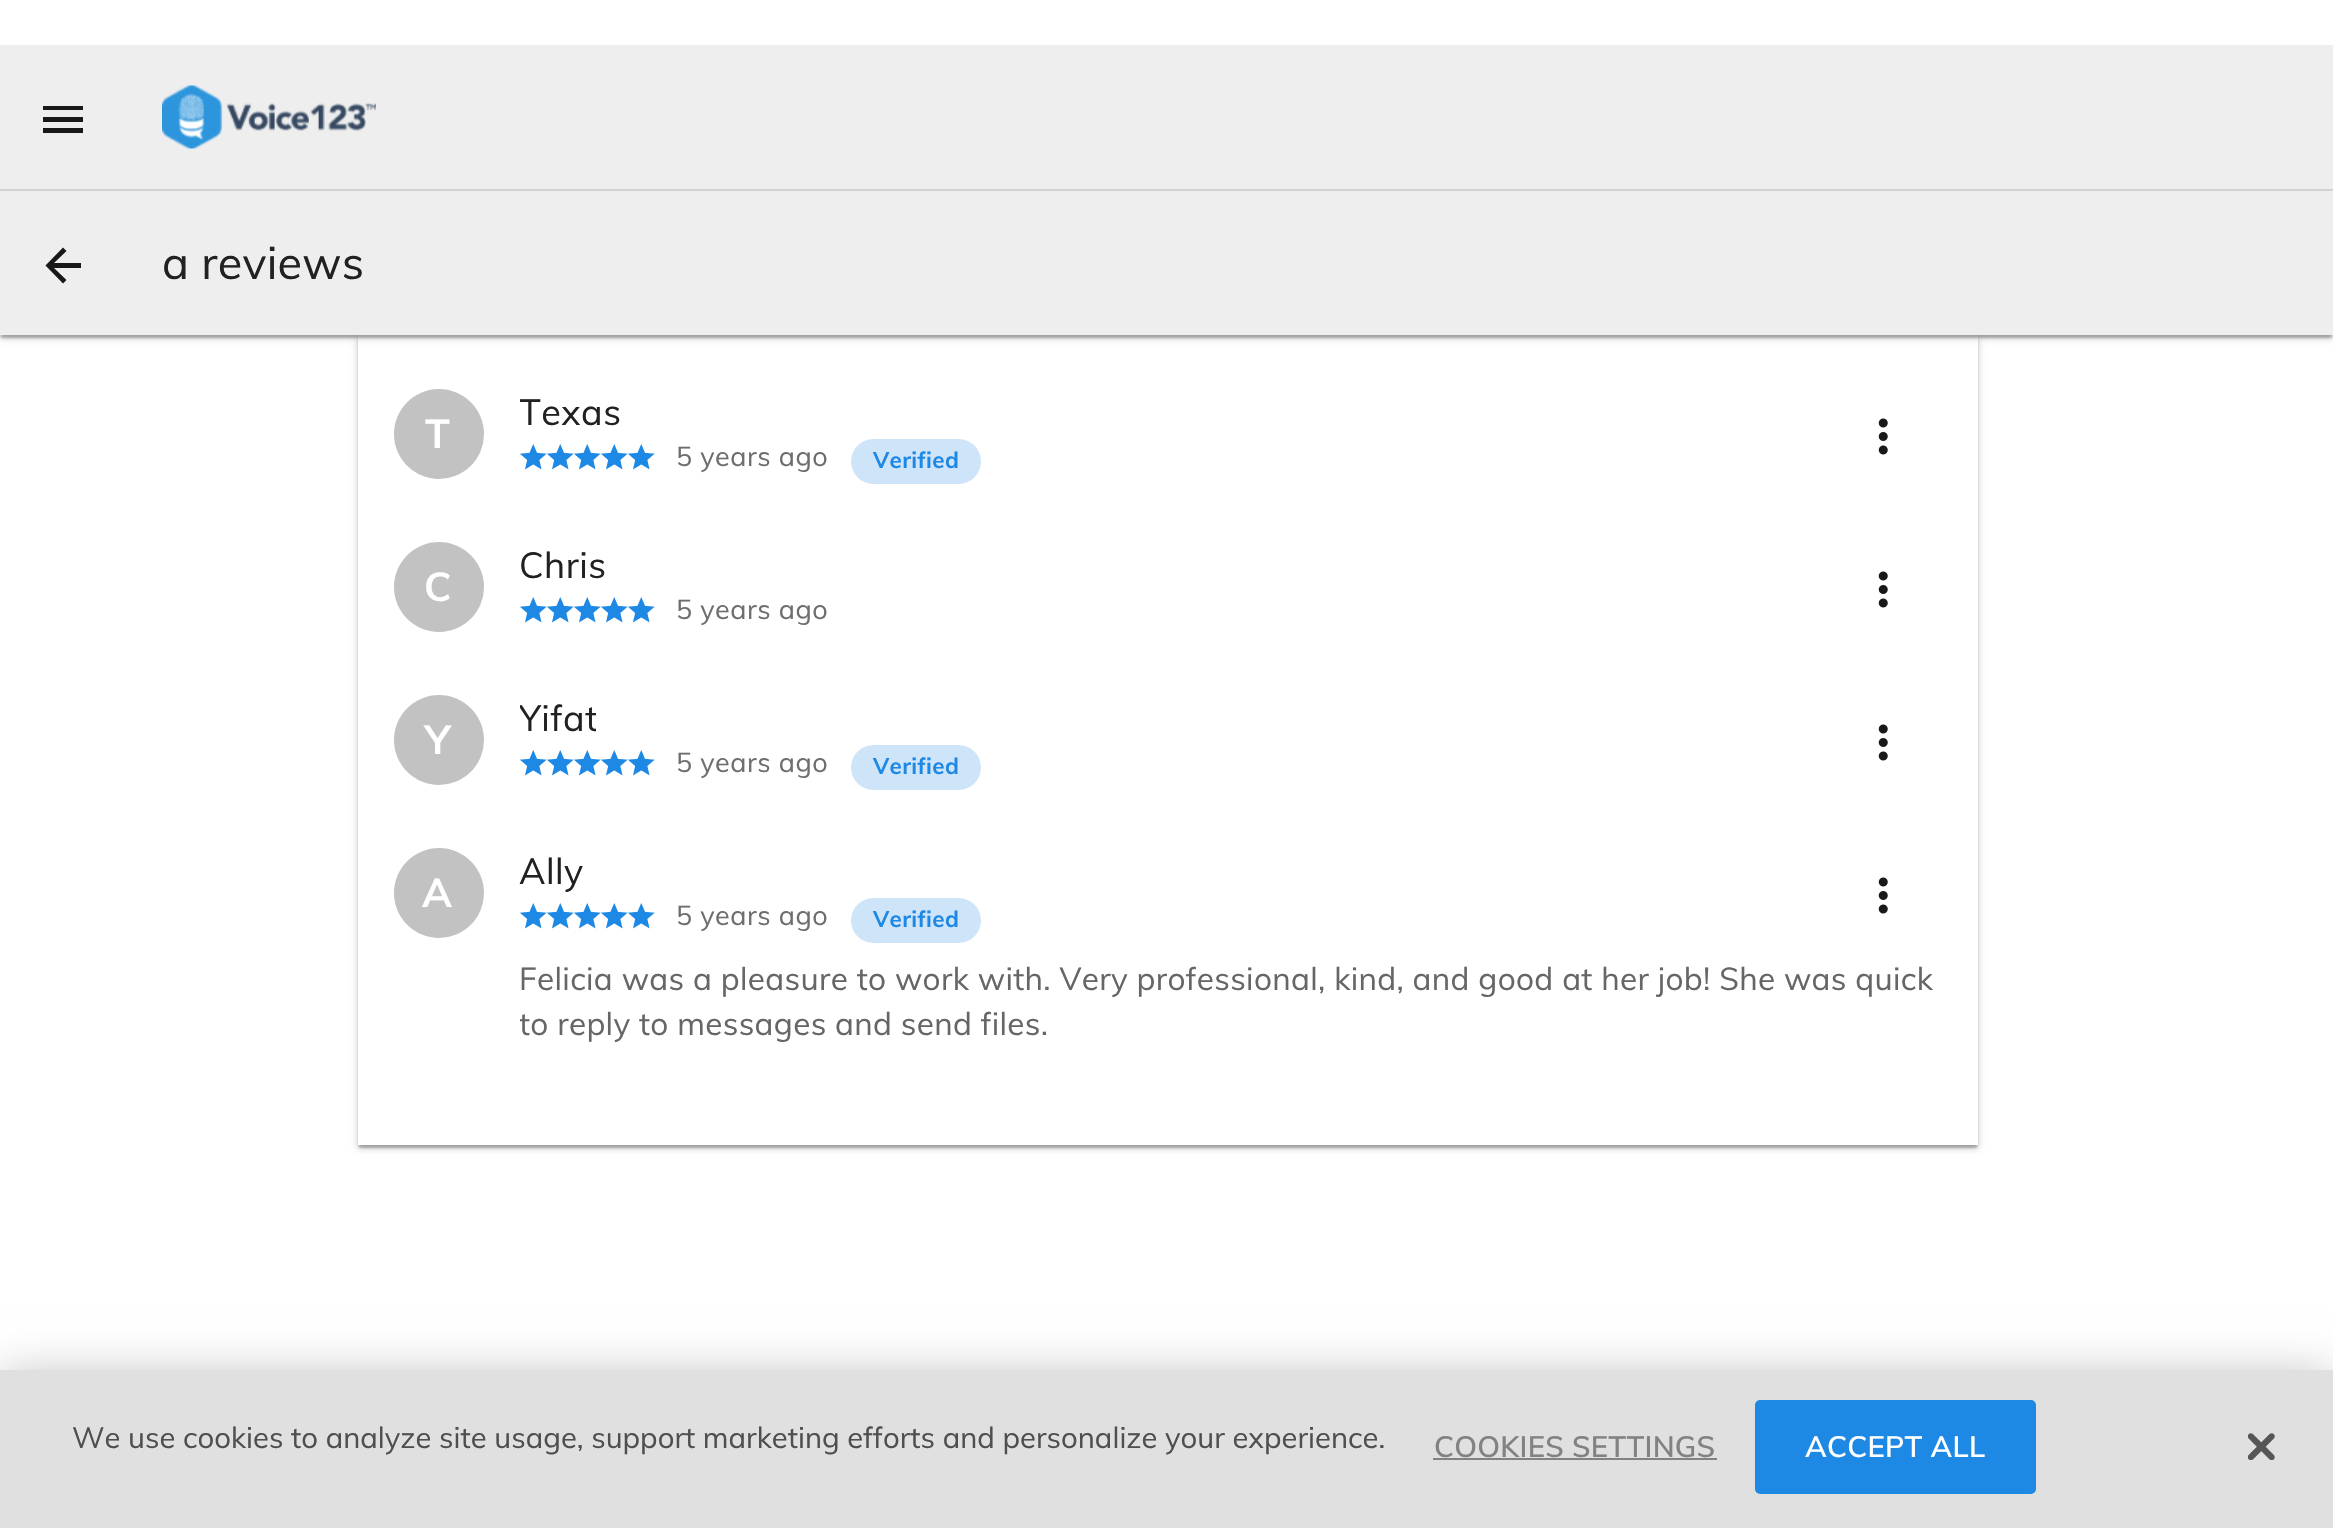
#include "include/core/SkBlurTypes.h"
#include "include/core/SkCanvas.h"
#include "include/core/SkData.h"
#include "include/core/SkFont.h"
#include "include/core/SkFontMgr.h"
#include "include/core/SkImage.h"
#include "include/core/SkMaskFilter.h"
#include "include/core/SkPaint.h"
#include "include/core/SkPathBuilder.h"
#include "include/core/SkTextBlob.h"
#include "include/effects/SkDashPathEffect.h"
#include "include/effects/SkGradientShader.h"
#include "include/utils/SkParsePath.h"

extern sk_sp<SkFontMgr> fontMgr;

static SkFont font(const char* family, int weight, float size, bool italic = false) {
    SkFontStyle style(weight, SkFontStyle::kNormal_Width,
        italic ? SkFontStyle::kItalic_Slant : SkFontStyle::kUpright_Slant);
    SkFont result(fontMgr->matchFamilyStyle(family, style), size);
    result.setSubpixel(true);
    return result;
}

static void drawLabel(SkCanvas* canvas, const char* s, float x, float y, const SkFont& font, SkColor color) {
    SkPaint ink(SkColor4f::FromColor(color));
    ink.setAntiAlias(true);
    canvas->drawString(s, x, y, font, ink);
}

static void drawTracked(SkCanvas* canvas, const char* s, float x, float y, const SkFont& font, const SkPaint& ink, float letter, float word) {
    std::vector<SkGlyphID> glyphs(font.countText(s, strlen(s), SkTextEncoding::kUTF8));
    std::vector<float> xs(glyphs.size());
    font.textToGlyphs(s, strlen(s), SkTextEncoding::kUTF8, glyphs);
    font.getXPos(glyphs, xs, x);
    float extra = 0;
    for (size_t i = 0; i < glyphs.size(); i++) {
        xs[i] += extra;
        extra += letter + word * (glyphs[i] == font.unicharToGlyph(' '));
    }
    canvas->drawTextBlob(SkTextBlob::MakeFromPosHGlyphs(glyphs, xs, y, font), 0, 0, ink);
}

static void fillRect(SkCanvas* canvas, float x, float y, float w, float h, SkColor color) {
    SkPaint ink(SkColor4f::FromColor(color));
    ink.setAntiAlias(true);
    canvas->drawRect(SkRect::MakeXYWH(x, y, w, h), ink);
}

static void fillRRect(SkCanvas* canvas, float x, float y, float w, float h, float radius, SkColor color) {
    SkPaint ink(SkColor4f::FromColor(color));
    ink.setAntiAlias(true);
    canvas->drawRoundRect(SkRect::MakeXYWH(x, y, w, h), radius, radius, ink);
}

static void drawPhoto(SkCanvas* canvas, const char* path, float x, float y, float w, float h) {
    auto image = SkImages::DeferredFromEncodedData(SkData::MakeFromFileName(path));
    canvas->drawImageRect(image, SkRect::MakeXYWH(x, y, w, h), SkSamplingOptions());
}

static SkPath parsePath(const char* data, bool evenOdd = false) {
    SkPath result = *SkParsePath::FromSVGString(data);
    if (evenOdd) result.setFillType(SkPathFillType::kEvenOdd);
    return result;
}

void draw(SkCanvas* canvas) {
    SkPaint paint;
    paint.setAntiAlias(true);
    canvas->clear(0xFFFFFFFF);
    paint.setColor(0x1F000000);
    paint.setMaskFilter(SkMaskFilter::MakeBlur(kNormal_SkBlurStyle, 1));
    canvas->drawRect(SkRect::MakeXYWH(360, 342, 1616, 806), paint);
    paint.setMaskFilter(nullptr);
    paint.setColor(0x24000000);
    paint.setMaskFilter(SkMaskFilter::MakeBlur(kNormal_SkBlurStyle, 1));
    canvas->drawRect(SkRect::MakeXYWH(358, 338, 1620, 810), paint);
    paint.setMaskFilter(nullptr);
    paint.setColor(0x33000000);
    paint.setMaskFilter(SkMaskFilter::MakeBlur(kNormal_SkBlurStyle, 3.5f));
    canvas->drawRect(SkRect::MakeXYWH(358, 338, 1620, 810), paint);
    paint.setMaskFilter(nullptr);
    fillRect(canvas, 358, 335, 1620, 810, 0xFFFFFFFF);
    paint.setColor(0x1F000000);
    paint.setMaskFilter(SkMaskFilter::MakeBlur(kNormal_SkBlurStyle, 1));
    canvas->drawRect(SkRect::MakeXYWH(2, 52, 2329, 286), paint);
    paint.setMaskFilter(nullptr);
    paint.setColor(0x24000000);
    paint.setMaskFilter(SkMaskFilter::MakeBlur(kNormal_SkBlurStyle, 1));
    canvas->drawRect(SkRect::MakeXYWH(0, 47, 2333, 291), paint);
    paint.setMaskFilter(nullptr);
    canvas->save();
    canvas->clipRect(SkRect::MakeXYWH(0, 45, 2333, 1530));
    paint.setColor(0x33000000);
    paint.setMaskFilter(SkMaskFilter::MakeBlur(kNormal_SkBlurStyle, 3.5f));
    canvas->drawRect(SkRect::MakeXYWH(0, 47, 2333, 291), paint);
    paint.setMaskFilter(nullptr);
    canvas->restore();
    fillRect(canvas, 0, 45, 2333, 290, 0xFFEEEEEE);
    paint.setColor(0xFF181818);
    canvas->drawPath(parsePath("M43 106H83V110H43V106M43 117H83V122H43V117M43 128H83V133H43Z"), paint);
    drawPhoto(canvas, "assets/img1.png", 162, 85, 214, 64);
    fillRect(canvas, 0, 189, 2333, 2, 0xFFD1D1D1);
    canvas->drawPath(parsePath("M81 263V268H54L66.5 280L63 283.5L45.5 265.5L63 247.5L66.5 251L54 263Z"), paint);
    SkFont font1 = font("Muli", 400, 45);
    paint.setColor(0xFF212121);
    drawTracked(canvas, "a reviews", 162, 279, font1, paint, 0.25f, 0);
    paint.setColor(0xFFC2C2C2);
    canvas->drawCircle(439, 434, 45, paint);
    SkFont font2 = font("Muli", 700, 40);
    paint.setColor(0xFFFFFFFF);
    drawTracked(canvas, "T", 425, 448, font2, paint, 0.32f, 0);
    canvas->save();
    canvas->clipRect(SkRect::MakeXYWH(520, 389, 101, 45));
    SkFont font3 = font("Muli", 400, 36);
    paint.setColor(0xFF212121);
    drawTracked(canvas, "Texas", 519, 425, font3, paint, 0.5f, 0);
    canvas->restore();
    drawPhoto(canvas, "assets/img2.png", 520, 444, 27, 26);
    drawPhoto(canvas, "assets/img2.png", 547, 444, 27, 26);
    drawPhoto(canvas, "assets/img2.png", 574, 444, 27, 26);
    drawPhoto(canvas, "assets/img2.png", 601, 444, 27, 26);
    drawPhoto(canvas, "assets/img2.png", 628, 444, 27, 26);
    SkFont font4 = font("Muli", 400, 27);
    paint.setColor(0xFF6E6E6E);
    drawTracked(canvas, "5 years ago", 676, 466, font4, paint, 0.5f, 0);
    fillRRect(canvas, 851, 439, 130, 45, 22.5f, 0xFFCEE4F9);
    SkFont font5 = font("Muli", 700, 22.5f);
    paint.setColor(0xFF1E88E5);
    drawTracked(canvas, "Verified", 873, 468, font5, paint, 0.32f, 0);
    drawPhoto(canvas, "assets/img3.png", 1878, 418, 10, 37);
    paint.setColor(0xFFC2C2C2);
    canvas->drawCircle(439, 587, 45, paint);
    paint.setColor(0xFFFFFFFF);
    drawTracked(canvas, "C", 424, 601, font2, paint, 0.32f, 0);
    paint.setColor(0xFF212121);
    drawTracked(canvas, "Chris", 519, 578, font3, paint, 0.5f, 0);
    drawPhoto(canvas, "assets/img2.png", 520, 597, 27, 26);
    drawPhoto(canvas, "assets/img2.png", 547, 597, 27, 26);
    drawPhoto(canvas, "assets/img2.png", 574, 597, 27, 26);
    drawPhoto(canvas, "assets/img2.png", 601, 597, 27, 26);
    drawPhoto(canvas, "assets/img2.png", 628, 597, 27, 26);
    paint.setColor(0xFF6E6E6E);
    drawTracked(canvas, "5 years ago", 676, 619, font4, paint, 0.5f, 0);
    drawPhoto(canvas, "assets/img3.png", 1878, 571, 10, 37);
    paint.setColor(0xFFC2C2C2);
    canvas->drawCircle(439, 740, 45, paint);
    paint.setColor(0xFFFFFFFF);
    drawTracked(canvas, "Y", 425, 754, font2, paint, 0.32f, 0);
    canvas->save();
    canvas->clipRect(SkRect::MakeXYWH(520, 695, 76, 45));
    paint.setColor(0xFF212121);
    drawTracked(canvas, "Yifat", 519, 731, font3, paint, 0.5f, 0);
    canvas->restore();
    drawPhoto(canvas, "assets/img2.png", 520, 750, 27, 26);
    drawPhoto(canvas, "assets/img2.png", 547, 750, 27, 26);
    drawPhoto(canvas, "assets/img2.png", 574, 750, 27, 26);
    drawPhoto(canvas, "assets/img2.png", 601, 750, 27, 26);
    drawPhoto(canvas, "assets/img2.png", 628, 750, 27, 26);
    paint.setColor(0xFF6E6E6E);
    drawTracked(canvas, "5 years ago", 676, 772, font4, paint, 0.5f, 0);
    fillRRect(canvas, 851, 745, 130, 45, 22.5f, 0xFFCEE4F9);
    paint.setColor(0xFF1E88E5);
    drawTracked(canvas, "Verified", 873, 774, font5, paint, 0.32f, 0);
    drawPhoto(canvas, "assets/img3.png", 1878, 724, 10, 37);
    paint.setColor(0xFFC2C2C2);
    canvas->drawCircle(439, 893, 45, paint);
    paint.setColor(0xFFFFFFFF);
    drawTracked(canvas, "A", 422, 907, font2, paint, 0.32f, 0);
    paint.setColor(0xFF212121);
    drawTracked(canvas, "Ally", 519, 884, font3, paint, 0.5f, 0);
    drawPhoto(canvas, "assets/img2.png", 520, 903, 27, 26);
    drawPhoto(canvas, "assets/img2.png", 547, 903, 27, 26);
    drawPhoto(canvas, "assets/img2.png", 574, 903, 27, 26);
    drawPhoto(canvas, "assets/img2.png", 601, 903, 27, 26);
    drawPhoto(canvas, "assets/img2.png", 628, 903, 27, 26);
    paint.setColor(0xFF6E6E6E);
    drawTracked(canvas, "5 years ago", 676, 925, font4, paint, 0.5f, 0);
    fillRRect(canvas, 851, 898, 130, 45, 22.5f, 0xFFCEE4F9);
    paint.setColor(0xFF1E88E5);
    drawTracked(canvas, "Verified", 873, 927, font5, paint, 0.32f, 0);
    drawPhoto(canvas, "assets/img3.png", 1878, 877, 10, 37);
    SkFont font6 = font("Muli", 400, 31.5f);
    paint.setColor(0xFF666666);
    drawTracked(canvas, "Felicia was a pleasure to work with. Very professional, kind, and good at her job! She was quick", 519, 990, font6, paint, 0.32f, 0);
    canvas->save();
    canvas->clipRect(SkRect::MakeXYWH(520, 956, 1422, 90));
    drawTracked(canvas, "to reply to messages and send files.", 519, 1035, font6, paint, 0.32f, 0);
    canvas->restore();
    paint.setColor(0x33000000);
    paint.setMaskFilter(SkMaskFilter::MakeBlur(kNormal_SkBlurStyle, 20));
    canvas->drawRect(SkRect::MakeXYWH(0, 1370, 2333, 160), paint);
    paint.setMaskFilter(nullptr);
    fillRect(canvas, 0, 1370, 2333, 158, 0xFFE0E0E0);
    SkFont font7 = font("Muli", 400, 29.25f);
    drawLabel(canvas, "We use cookies to analyze site usage, support marketing efforts and personalize your experience.", 72, 1448, font7, 0xFF4F4F4F);
    SkFont font8 = font("Muli", 600, 29.25f);
    paint.setColor(0xFF828282);
    drawTracked(canvas, "COOKIES SETTINGS", 1434, 1457, font8, paint, 0.25f, 0);
    fillRect(canvas, 1433, 1458, 284, 2, 0xFF828282);
    paint.setColor(0xFF1E88E5);
    canvas->drawRoundRect(SkRect::MakeXYWH(1756, 1401, 279, 92), 4, 4, paint);
    paint.setStroke(true);
    paint.setStrokeWidth(2);
    canvas->drawRoundRect(SkRect::MakeXYWH(1756, 1401, 279, 92), 4, 4, paint);
    paint.setStroke(false);
    paint.setColor(0xFFFFFFFF);
    drawTracked(canvas, "ACCEPT ALL", 1805, 1457, font8, paint, 0.25f, 0);
    drawPhoto(canvas, "assets/img4.png", 2248, 1433, 27, 27);
}
